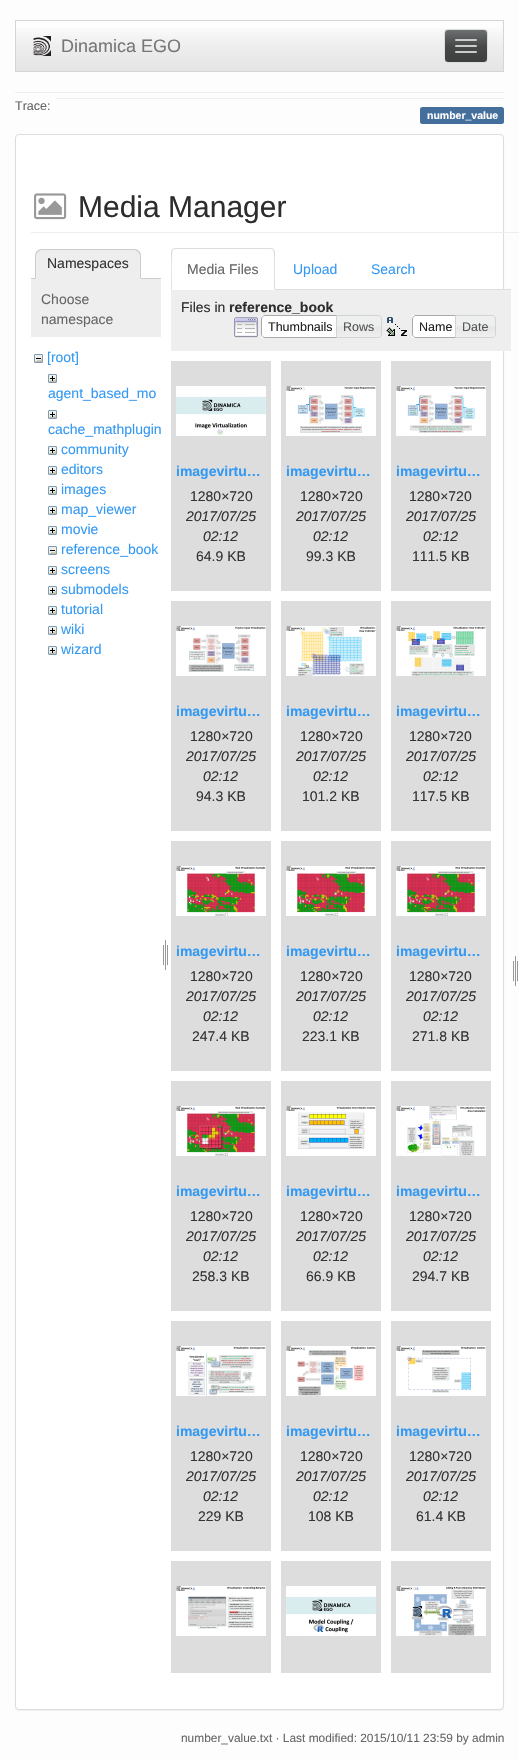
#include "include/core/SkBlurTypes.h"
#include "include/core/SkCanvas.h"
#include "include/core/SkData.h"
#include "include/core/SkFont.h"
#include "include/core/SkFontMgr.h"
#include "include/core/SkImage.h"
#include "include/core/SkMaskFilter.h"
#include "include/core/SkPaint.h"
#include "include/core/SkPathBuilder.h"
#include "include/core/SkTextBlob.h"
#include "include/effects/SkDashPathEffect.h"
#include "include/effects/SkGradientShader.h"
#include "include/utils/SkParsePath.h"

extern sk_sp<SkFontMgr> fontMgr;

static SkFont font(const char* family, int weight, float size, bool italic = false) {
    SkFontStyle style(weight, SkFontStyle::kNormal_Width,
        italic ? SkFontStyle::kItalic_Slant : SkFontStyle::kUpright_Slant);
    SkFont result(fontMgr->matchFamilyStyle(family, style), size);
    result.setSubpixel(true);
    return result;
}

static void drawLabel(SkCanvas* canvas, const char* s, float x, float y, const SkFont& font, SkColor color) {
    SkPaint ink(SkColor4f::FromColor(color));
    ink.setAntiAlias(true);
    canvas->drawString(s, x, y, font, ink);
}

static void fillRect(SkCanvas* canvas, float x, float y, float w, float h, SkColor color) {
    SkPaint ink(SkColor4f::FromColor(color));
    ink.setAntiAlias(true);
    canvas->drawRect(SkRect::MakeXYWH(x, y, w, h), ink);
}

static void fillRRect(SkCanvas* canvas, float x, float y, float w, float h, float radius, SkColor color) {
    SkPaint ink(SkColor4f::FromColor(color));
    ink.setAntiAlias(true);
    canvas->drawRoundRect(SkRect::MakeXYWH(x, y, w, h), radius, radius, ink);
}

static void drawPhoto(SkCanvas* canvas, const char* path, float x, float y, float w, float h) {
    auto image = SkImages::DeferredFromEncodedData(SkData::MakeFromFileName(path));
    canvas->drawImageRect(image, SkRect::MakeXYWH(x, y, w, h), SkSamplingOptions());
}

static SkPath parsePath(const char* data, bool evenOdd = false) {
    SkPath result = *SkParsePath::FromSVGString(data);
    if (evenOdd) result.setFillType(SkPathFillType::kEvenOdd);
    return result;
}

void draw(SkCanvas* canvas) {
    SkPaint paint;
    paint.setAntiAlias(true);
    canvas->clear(0xFFFDFDFD);
    {
        const SkColor colors[] = {0xFFFFFFFF, 0xFFEEEEEE, 0xFFE4E4E4};
        const float stops[] = {0, 0.5f, 1};
        const SkPoint ends[] = {{260, 21}, {260, 71}};
        paint.setShader(SkGradientShader::MakeLinear(ends, colors, stops, 3, SkTileMode::kClamp));
        paint.setAlpha(255);
    }
    canvas->drawRect(SkRect::MakeXYWH(16, 28, 487, 43), paint);
    paint.setStroke(true);
    paint.setStrokeWidth(1);
    paint.setShader(nullptr);
    paint.setColor(0xFFD5D5D5);
    canvas->drawRect(SkRect::MakeXYWH(15.5f, 20.5f, 488, 51), paint);
    drawPhoto(canvas, "assets/img1.png", 33, 36, 18, 20);
    SkFont font1 = font("Liberation Sans", 400, 18);
    drawLabel(canvas, "Dinamica EGO", 61, 52, font1, 0xFF777777);
    canvas->save();
    canvas->clipPath(parsePath("M448 29H484C486 29 488 31 488 33V59C488 61 486 63 484 63H448C446 63 444 61 444 59V33C444 31 446 29 448 29Z"), true);
    paint.setStroke(false);
    {
        const SkColor colors[] = {0xFF6D7070, 0xFF474949, 0xFF3D3F3F};
        const float stops[] = {0, 0.5f, 1};
        const SkPoint ends[] = {{466, 30}, {466, 62}};
        paint.setShader(SkGradientShader::MakeLinear(ends, colors, stops, 3, SkTileMode::kClamp));
        paint.setAlpha(255);
    }
    canvas->drawRect(SkRect::MakeXYWH(445, 30, 42, 32), paint);
    canvas->restore();
    paint.setStroke(true);
    paint.setShader(nullptr);
    paint.setColor(0xFFDDDDDD);
    canvas->drawRoundRect(SkRect::MakeXYWH(444.5f, 29.5f, 43, 33), 3.5f, 3.5f, paint);
    fillRRect(canvas, 455, 39, 22, 2, 1, 0xFFCCCCCC);
    fillRRect(canvas, 455, 45, 22, 2, 1, 0xFFCCCCCC);
    fillRRect(canvas, 455, 51, 22, 2, 1, 0xFFCCCCCC);
    fillRect(canvas, 15, 92, 489, 1, 0xFFEEEEEE);
    fillRect(canvas, 56, 98, 448, 1, 0xFFEEEEEE);
    SkFont font2 = font("Liberation Sans", 400, 12.5f);
    drawLabel(canvas, "Trace:", 15, 110, font2, 0xFF666666);
    fillRRect(canvas, 420, 107, 84, 17, 2.5f, 0xFF446E9B);
    SkFont font3 = font("Liberation Sans", 700, 10.5f);
    drawLabel(canvas, "number_value", 427, 119, font3, 0xFFFFFFFF);
    paint.setStroke(false);
    paint.setColor(0x0D000000);
    paint.setMaskFilter(SkMaskFilter::MakeBlur(kNormal_SkBlurStyle, 0.5f));
    canvas->drawRoundRect(SkRect::MakeXYWH(15, 135, 489, 1576), 4, 4, paint);
    paint.setMaskFilter(nullptr);
    paint.setColor(0xFFFFFFFF);
    canvas->drawRoundRect(SkRect::MakeXYWH(15.5f, 134.5f, 488, 1575), 3.5f, 3.5f, paint);
    paint.setStroke(true);
    paint.setColor(0xFFDDDDDD);
    canvas->drawRoundRect(SkRect::MakeXYWH(15.5f, 134.5f, 488, 1575), 3.5f, 3.5f, paint);
    fillRect(canvas, 31, 232, 488, 1, 0xFFEEEEEE);
    drawPhoto(canvas, "assets/img2.png", 34, 193, 33, 27);
    SkFont font4 = font("Liberation Sans", 400, 30);
    drawLabel(canvas, "Media Manager", 78, 217, font4, 0xFF2D2D2D);
    fillRect(canvas, 31, 278, 130, 1, 0xFFCCCCCC);
    paint.setStroke(false);
    paint.setColor(0xFFEEEEEE);
    canvas->drawPath(parsePath("M42 249H134C138 249 141 252 141 256V279H35V256C35 252 38 249 42 249Z"), paint);
    paint.setColor(0xFFCCCCCC);
    canvas->drawPath(parsePath("M42 249C40 249 38 250 37 251L38 252L41 250H135L138 252L139 251C138 250 136 249 134 249Z"), paint);
    canvas->drawPath(parsePath("M141 279V256C141 254 140 252 139 251L138 252C139 253 140 254.5 140 256V278Z"), paint);
    paint.setColor(0xFFEEEEEE);
    canvas->drawPath(parsePath("M141 279L140 278H36L35 279Z"), paint);
    paint.setColor(0xFFCCCCCC);
    canvas->drawPath(parsePath("M35 279L36 278V256C36 254.5 37 253 38 252L37 251C36 252 35 254 35 256Z"), paint);
    SkFont font5 = font("Liberation Sans", 400, 14);
    drawLabel(canvas, "Namespaces", 47, 268, font5, 0xFF333333);
    fillRect(canvas, 31, 279, 130, 58, 0xFFEEEEEE);
    drawLabel(canvas, "Choose", 41, 304, font5, 0xFF666666);
    drawLabel(canvas, "namespace", 41, 324, font5, 0xFF666666);
    drawPhoto(canvas, "assets/img3.png", 34, 354, 9, 9);
    drawLabel(canvas, "[root]", 47, 362, font5, 0xFF3399F3);
    drawPhoto(canvas, "assets/img4.png", 48, 374, 9, 9);
    drawLabel(canvas, "agent_based_mo", 48, 398, font5, 0xFF3399F3);
    drawPhoto(canvas, "assets/img4.png", 48, 410, 9, 9);
    drawLabel(canvas, "cache_mathplugin", 48, 434, font5, 0xFF3399F3);
    drawPhoto(canvas, "assets/img4.png", 48, 446, 9, 9);
    drawLabel(canvas, "community", 61, 454, font5, 0xFF3399F3);
    drawPhoto(canvas, "assets/img4.png", 48, 466, 9, 9);
    drawLabel(canvas, "editors", 61, 474, font5, 0xFF3399F3);
    drawPhoto(canvas, "assets/img4.png", 48, 486, 9, 9);
    drawLabel(canvas, "images", 61, 494, font5, 0xFF3399F3);
    drawPhoto(canvas, "assets/img4.png", 48, 506, 9, 9);
    drawLabel(canvas, "map_viewer", 61, 514, font5, 0xFF3399F3);
    drawPhoto(canvas, "assets/img4.png", 48, 526, 9, 9);
    drawLabel(canvas, "movie", 61, 534, font5, 0xFF3399F3);
    drawPhoto(canvas, "assets/img3.png", 48, 546, 9, 9);
    drawLabel(canvas, "reference_book", 61, 554, font5, 0xFF3399F3);
    drawPhoto(canvas, "assets/img4.png", 48, 566, 9, 9);
    drawLabel(canvas, "screens", 61, 574, font5, 0xFF3399F3);
    drawPhoto(canvas, "assets/img4.png", 48, 586, 9, 9);
    drawLabel(canvas, "submodels", 61, 594, font5, 0xFF3399F3);
    drawPhoto(canvas, "assets/img4.png", 48, 606, 9, 9);
    drawLabel(canvas, "tutorial", 61, 614, font5, 0xFF3399F3);
    drawPhoto(canvas, "assets/img4.png", 48, 626, 9, 9);
    drawLabel(canvas, "wiki", 61, 634, font5, 0xFF3399F3);
    drawPhoto(canvas, "assets/img4.png", 48, 646, 9, 9);
    drawLabel(canvas, "wizard", 61, 654, font5, 0xFF3399F3);
    drawPhoto(canvas, "assets/img5.png", 163, 939, 5, 31);
    fillRect(canvas, 275, 289, 236, 1, 0xFFDDDDDD);
    paint.setColor(0xFFDDDDDD);
    canvas->drawPath(parsePath("M175 248L172 249L173 250L175 249H271L273 250L274 249L271 248Z"), paint);
    canvas->drawPath(parsePath("M275 290V252C275 251 274 250 274 249L273 250C275 252 274 284 274 289Z"), paint);
    canvas->drawPath(parsePath("M171 290L172 289C172 284 171 252 173 250L172 249L171 252Z"), paint);
    drawLabel(canvas, "Media Files", 187, 274, font5, 0xFF666666);
    drawLabel(canvas, "Upload", 293, 274, font5, 0xFF3399F3);
    drawLabel(canvas, "Search", 371, 274, font5, 0xFF3399F3);
    fillRect(canvas, 171, 290, 340, 61, 0xFFEEEEEE);
    drawLabel(canvas, "Files in", 181, 312, font5, 0xFF2D2D2D);
    SkFont font6 = font("Liberation Sans", 700, 14);
    drawLabel(canvas, "reference_book", 229, 312, font6, 0xFF2D2D2D);
    drawPhoto(canvas, "assets/img6.png", 234, 317, 24, 21);
    fillRect(canvas, 261, 315, 75, 23, 0xFFFFFFFF);
    paint.setStroke(true);
    paint.setColor(0xFFAAAAAA);
    canvas->drawPath(parsePath("M265 315.5H340.5V337.5H265C263 337.5 261.5 336 261.5 334V319C261.5 317 263 315.5 265 315.5Z"), paint);
    drawLabel(canvas, "Thumbnails", 268, 331, font2, 0xFF212121);
    drawPhoto(canvas, "assets/img7.png", 337, 315, 45, 23);
    paint.setColor(0xFFD3D3D3);
    canvas->drawPath(parsePath("M336.5 315.5H378C380 315.5 381.5 317 381.5 319V334C381.5 336 380 337.5 378 337.5H336.5Z"), paint);
    drawLabel(canvas, "Rows", 343, 331, font2, 0xFF555555);
    drawPhoto(canvas, "assets/img8.png", 386, 317, 21, 19);
    fillRect(canvas, 412, 315, 43, 23, 0xFFFFFFFF);
    paint.setColor(0xFFAAAAAA);
    canvas->drawPath(parsePath("M416 315.5H459.5V337.5H416C414 337.5 412.5 336 412.5 334V319C412.5 317 414 315.5 416 315.5Z"), paint);
    drawLabel(canvas, "Name", 419, 331, font2, 0xFF212121);
    drawPhoto(canvas, "assets/img9.png", 456, 315, 40, 23);
    paint.setColor(0xFFD3D3D3);
    canvas->drawPath(parsePath("M455.5 315.5H492C494 315.5 495.5 317 495.5 319V334C495.5 336 494 337.5 492 337.5H455.5Z"), paint);
    drawLabel(canvas, "Date", 462, 331, font2, 0xFF555555);
    fillRect(canvas, 171, 361, 100, 230, 0xFFDDDDDD);
    drawPhoto(canvas, "assets/img10.png", 176, 386, 90, 50);
    drawLabel(canvas, "imagevirtu…", 176, 476, font6, 0xFF3399F3);
    drawLabel(canvas, "1280×720", 190, 501, font5, 0xFF333333);
    SkFont font7 = font("Liberation Sans", 400, 14, true);
    drawLabel(canvas, "2017/07/25", 186, 521, font7, 0xFF333333);
    drawLabel(canvas, "02:12", 203, 541, font7, 0xFF333333);
    drawLabel(canvas, "64.9 KB", 196, 561, font5, 0xFF333333);
    fillRect(canvas, 281, 361, 100, 230, 0xFFDDDDDD);
    drawPhoto(canvas, "assets/img11.png", 286, 386, 90, 50);
    drawLabel(canvas, "imagevirtu…", 286, 476, font6, 0xFF3399F3);
    drawLabel(canvas, "1280×720", 300, 501, font5, 0xFF333333);
    drawLabel(canvas, "2017/07/25", 296, 521, font7, 0xFF333333);
    drawLabel(canvas, "02:12", 313, 541, font7, 0xFF333333);
    drawLabel(canvas, "99.3 KB", 306, 561, font5, 0xFF333333);
    fillRect(canvas, 391, 361, 100, 230, 0xFFDDDDDD);
    drawPhoto(canvas, "assets/img12.png", 396, 386, 90, 50);
    drawLabel(canvas, "imagevirtu…", 396, 476, font6, 0xFF3399F3);
    drawLabel(canvas, "1280×720", 409, 501, font5, 0xFF333333);
    drawLabel(canvas, "2017/07/25", 406, 521, font7, 0xFF333333);
    drawLabel(canvas, "02:12", 423, 541, font7, 0xFF333333);
    drawLabel(canvas, "111.5 KB", 412, 561, font5, 0xFF333333);
    fillRect(canvas, 171, 601, 100, 230, 0xFFDDDDDD);
    drawPhoto(canvas, "assets/img13.png", 176, 626, 90, 50);
    drawLabel(canvas, "imagevirtu…", 176, 716, font6, 0xFF3399F3);
    drawLabel(canvas, "1280×720", 190, 741, font5, 0xFF333333);
    drawLabel(canvas, "2017/07/25", 186, 761, font7, 0xFF333333);
    drawLabel(canvas, "02:12", 203, 781, font7, 0xFF333333);
    drawLabel(canvas, "94.3 KB", 196, 801, font5, 0xFF333333);
    fillRect(canvas, 281, 601, 100, 230, 0xFFDDDDDD);
    drawPhoto(canvas, "assets/img14.png", 286, 626, 90, 50);
    drawLabel(canvas, "imagevirtu…", 286, 716, font6, 0xFF3399F3);
    drawLabel(canvas, "1280×720", 300, 741, font5, 0xFF333333);
    drawLabel(canvas, "2017/07/25", 296, 761, font7, 0xFF333333);
    drawLabel(canvas, "02:12", 313, 781, font7, 0xFF333333);
    drawLabel(canvas, "101.2 KB", 302, 801, font5, 0xFF333333);
    fillRect(canvas, 391, 601, 100, 230, 0xFFDDDDDD);
    drawPhoto(canvas, "assets/img15.png", 396, 626, 90, 50);
    drawLabel(canvas, "imagevirtu…", 396, 716, font6, 0xFF3399F3);
    drawLabel(canvas, "1280×720", 409, 741, font5, 0xFF333333);
    drawLabel(canvas, "2017/07/25", 406, 761, font7, 0xFF333333);
    drawLabel(canvas, "02:12", 423, 781, font7, 0xFF333333);
    drawLabel(canvas, "117.5 KB", 412, 801, font5, 0xFF333333);
    fillRect(canvas, 171, 841, 100, 230, 0xFFDDDDDD);
    drawPhoto(canvas, "assets/img16.png", 176, 866, 90, 50);
    drawLabel(canvas, "imagevirtu…", 176, 956, font6, 0xFF3399F3);
    drawLabel(canvas, "1280×720", 190, 981, font5, 0xFF333333);
    drawLabel(canvas, "2017/07/25", 186, 1001, font7, 0xFF333333);
    drawLabel(canvas, "02:12", 203, 1021, font7, 0xFF333333);
    drawLabel(canvas, "247.4 KB", 192, 1041, font5, 0xFF333333);
    fillRect(canvas, 281, 841, 100, 230, 0xFFDDDDDD);
    drawPhoto(canvas, "assets/img17.png", 286, 866, 90, 50);
    drawLabel(canvas, "imagevirtu…", 286, 956, font6, 0xFF3399F3);
    drawLabel(canvas, "1280×720", 300, 981, font5, 0xFF333333);
    drawLabel(canvas, "2017/07/25", 296, 1001, font7, 0xFF333333);
    drawLabel(canvas, "02:12", 313, 1021, font7, 0xFF333333);
    drawLabel(canvas, "223.1 KB", 302, 1041, font5, 0xFF333333);
    fillRect(canvas, 391, 841, 100, 230, 0xFFDDDDDD);
    drawPhoto(canvas, "assets/img18.png", 396, 866, 90, 50);
    drawLabel(canvas, "imagevirtu…", 396, 956, font6, 0xFF3399F3);
    drawLabel(canvas, "1280×720", 409, 981, font5, 0xFF333333);
    drawLabel(canvas, "2017/07/25", 406, 1001, font7, 0xFF333333);
    drawLabel(canvas, "02:12", 423, 1021, font7, 0xFF333333);
    drawLabel(canvas, "271.8 KB", 412, 1041, font5, 0xFF333333);
    fillRect(canvas, 171, 1081, 100, 230, 0xFFDDDDDD);
    drawPhoto(canvas, "assets/img19.png", 176, 1106, 90, 50);
    drawLabel(canvas, "imagevirtu…", 176, 1196, font6, 0xFF3399F3);
    drawLabel(canvas, "1280×720", 190, 1221, font5, 0xFF333333);
    drawLabel(canvas, "2017/07/25", 186, 1241, font7, 0xFF333333);
    drawLabel(canvas, "02:12", 203, 1261, font7, 0xFF333333);
    drawLabel(canvas, "258.3 KB", 192, 1281, font5, 0xFF333333);
    fillRect(canvas, 281, 1081, 100, 230, 0xFFDDDDDD);
    drawPhoto(canvas, "assets/img20.png", 286, 1106, 90, 50);
    drawLabel(canvas, "imagevirtu…", 286, 1196, font6, 0xFF3399F3);
    drawLabel(canvas, "1280×720", 300, 1221, font5, 0xFF333333);
    drawLabel(canvas, "2017/07/25", 296, 1241, font7, 0xFF333333);
    drawLabel(canvas, "02:12", 313, 1261, font7, 0xFF333333);
    drawLabel(canvas, "66.9 KB", 306, 1281, font5, 0xFF333333);
    fillRect(canvas, 391, 1081, 100, 230, 0xFFDDDDDD);
    drawPhoto(canvas, "assets/img21.png", 396, 1106, 90, 50);
    drawLabel(canvas, "imagevirtu…", 396, 1196, font6, 0xFF3399F3);
    drawLabel(canvas, "1280×720", 409, 1221, font5, 0xFF333333);
    drawLabel(canvas, "2017/07/25", 406, 1241, font7, 0xFF333333);
    drawLabel(canvas, "02:12", 423, 1261, font7, 0xFF333333);
    drawLabel(canvas, "294.7 KB", 412, 1281, font5, 0xFF333333);
    fillRect(canvas, 171, 1321, 100, 230, 0xFFDDDDDD);
    drawPhoto(canvas, "assets/img22.png", 176, 1346, 90, 50);
    drawLabel(canvas, "imagevirtu…", 176, 1436, font6, 0xFF3399F3);
    drawLabel(canvas, "1280×720", 190, 1461, font5, 0xFF333333);
    drawLabel(canvas, "2017/07/25", 186, 1481, font7, 0xFF333333);
    drawLabel(canvas, "02:12", 203, 1501, font7, 0xFF333333);
    drawLabel(canvas, "229 KB", 198, 1521, font5, 0xFF333333);
    fillRect(canvas, 281, 1321, 100, 230, 0xFFDDDDDD);
    drawPhoto(canvas, "assets/img23.png", 286, 1346, 90, 50);
    drawLabel(canvas, "imagevirtu…", 286, 1436, font6, 0xFF3399F3);
    drawLabel(canvas, "1280×720", 300, 1461, font5, 0xFF333333);
    drawLabel(canvas, "2017/07/25", 296, 1481, font7, 0xFF333333);
    drawLabel(canvas, "02:12", 313, 1501, font7, 0xFF333333);
    drawLabel(canvas, "108 KB", 308, 1521, font5, 0xFF333333);
    fillRect(canvas, 391, 1321, 100, 230, 0xFFDDDDDD);
    drawPhoto(canvas, "assets/img24.png", 396, 1346, 90, 50);
    drawLabel(canvas, "imagevirtu…", 396, 1436, font6, 0xFF3399F3);
    drawLabel(canvas, "1280×720", 409, 1461, font5, 0xFF333333);
    drawLabel(canvas, "2017/07/25", 406, 1481, font7, 0xFF333333);
    drawLabel(canvas, "02:12", 423, 1501, font7, 0xFF333333);
    drawLabel(canvas, "61.4 KB", 416, 1521, font5, 0xFF333333);
    fillRect(canvas, 171, 1561, 100, 112, 0xFFDDDDDD);
    drawPhoto(canvas, "assets/img25.png", 176, 1586, 90, 50);
    fillRect(canvas, 281, 1561, 100, 112, 0xFFDDDDDD);
    drawPhoto(canvas, "assets/img26.png", 286, 1586, 90, 50);
    fillRect(canvas, 391, 1561, 100, 112, 0xFFDDDDDD);
    drawPhoto(canvas, "assets/img27.png", 396, 1586, 90, 50);
    drawPhoto(canvas, "assets/img28.png", 513, 955, 5, 31);
    SkFont font8 = font("Liberation Sans", 400, 11.9f);
    drawLabel(canvas, "number_value.txt · Last modified: 2015/10/11 23:59 by admin", 181, 1742, font8, 0xFF666666);
}
